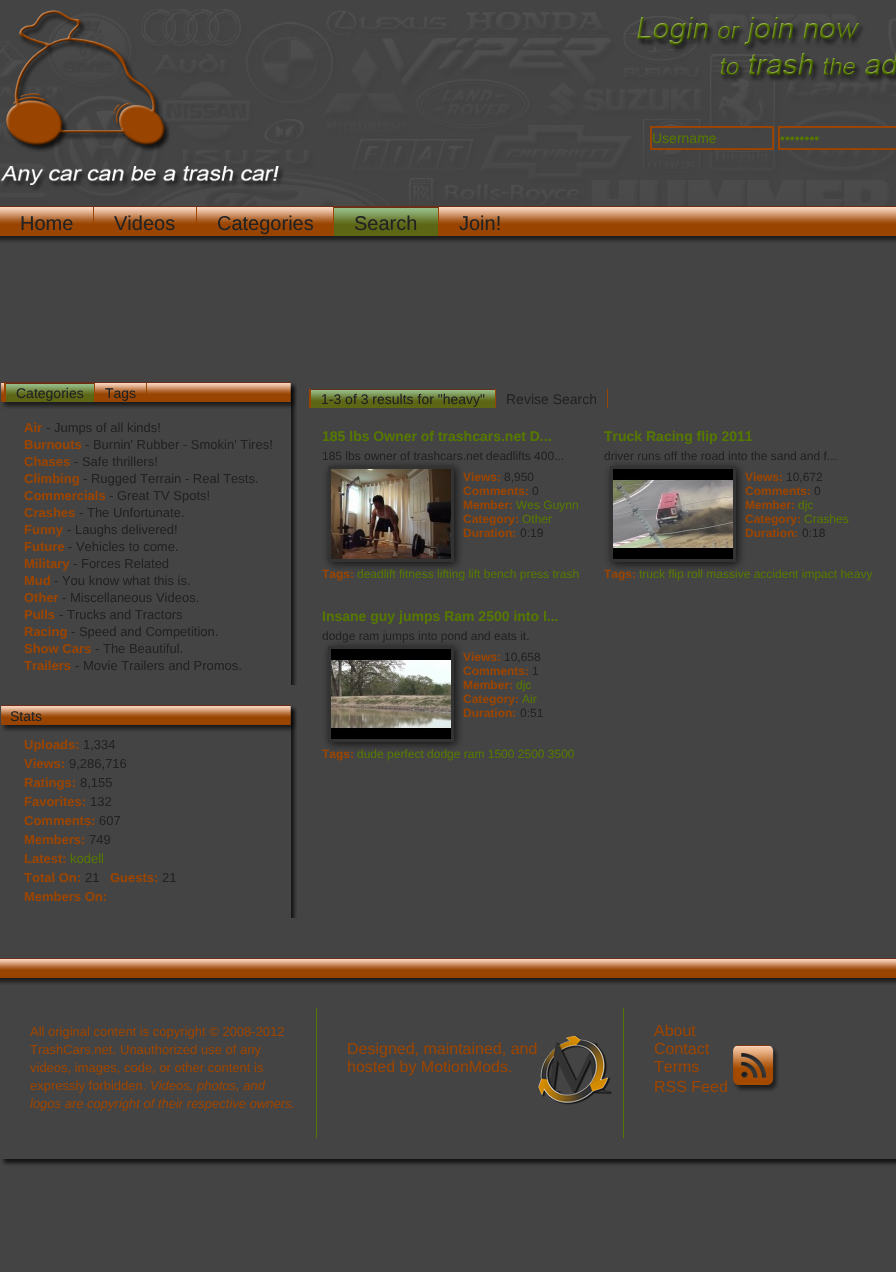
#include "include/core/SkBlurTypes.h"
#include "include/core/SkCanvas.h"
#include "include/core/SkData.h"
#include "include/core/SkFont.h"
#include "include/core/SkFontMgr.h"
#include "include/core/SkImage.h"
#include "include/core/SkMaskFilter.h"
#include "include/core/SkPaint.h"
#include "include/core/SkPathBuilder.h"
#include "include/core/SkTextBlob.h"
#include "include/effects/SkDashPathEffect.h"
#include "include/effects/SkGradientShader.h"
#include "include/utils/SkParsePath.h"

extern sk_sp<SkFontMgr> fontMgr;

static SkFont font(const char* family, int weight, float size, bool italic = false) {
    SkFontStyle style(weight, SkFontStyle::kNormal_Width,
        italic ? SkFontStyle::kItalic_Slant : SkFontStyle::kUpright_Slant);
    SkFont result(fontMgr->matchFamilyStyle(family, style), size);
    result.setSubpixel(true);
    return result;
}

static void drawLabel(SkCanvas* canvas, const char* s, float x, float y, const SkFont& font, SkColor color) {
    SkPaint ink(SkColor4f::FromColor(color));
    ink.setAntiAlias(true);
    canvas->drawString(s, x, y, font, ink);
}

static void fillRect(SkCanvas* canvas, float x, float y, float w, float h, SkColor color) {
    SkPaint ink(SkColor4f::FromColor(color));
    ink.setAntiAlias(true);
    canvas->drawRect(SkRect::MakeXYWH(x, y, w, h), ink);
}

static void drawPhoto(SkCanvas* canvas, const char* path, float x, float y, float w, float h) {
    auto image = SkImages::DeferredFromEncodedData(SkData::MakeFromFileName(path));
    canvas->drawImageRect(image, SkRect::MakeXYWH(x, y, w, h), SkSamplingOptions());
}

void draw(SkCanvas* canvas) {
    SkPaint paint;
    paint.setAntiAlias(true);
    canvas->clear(0xFF444444);
    drawPhoto(canvas, "assets/img1.png", 0, 9, 896, 197);
    drawPhoto(canvas, "assets/img2.png", 6, 10, 164, 142);
    drawPhoto(canvas, "assets/img3.png", 637, 17, 259, 65);
    fillRect(canvas, 652, 128, 101, 20, 0xFF444444);
    paint.setStroke(true);
    paint.setStrokeWidth(2);
    paint.setColor(0xFF994400);
    canvas->drawRect(SkRect::MakeXYWH(651, 127, 122, 22), paint);
    SkFont font1 = font("Liberation Sans", 400, 14);
    drawLabel(canvas, "Username", 652, 143, font1, 0xFF557700);
    fillRect(canvas, 785, 128, 111, 20, 0xFF444444);
    canvas->drawRect(SkRect::MakeXYWH(779, 127, 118, 22), paint);
    drawLabel(canvas, "••••••••", 780, 143, font1, 0xFF557700);
    drawPhoto(canvas, "assets/img4.png", 1, 166, 283, 25);
    fillRect(canvas, 0, 224, 896, 12, 0xFF994400);
    drawPhoto(canvas, "assets/img5.png", 0, 206, 896, 18);
    fillRect(canvas, 93, 207, 1, 17, 0xFF994400);
    SkFont font2 = font("Liberation Sans", 400, 20);
    drawLabel(canvas, "Home", 20, 230, font2, 0xFF222222);
    fillRect(canvas, 196, 207, 1, 17, 0xFF994400);
    drawLabel(canvas, "Videos", 114, 230, font2, 0xFF222222);
    drawLabel(canvas, "Categories", 217, 230, font2, 0xFF222222);
    drawPhoto(canvas, "assets/img6.png", 334, 207, 104, 29);
    fillRect(canvas, 438, 207, 1, 17, 0xFF994400);
    fillRect(canvas, 333, 207, 1, 17, 0xFF994400);
    drawLabel(canvas, "Search", 354, 230, font2, 0xFF222222);
    drawLabel(canvas, "Join!", 459, 230, font2, 0xFF222222);
    drawPhoto(canvas, "assets/img7.png", 0, 236, 896, 7);
    drawPhoto(canvas, "assets/img8.png", 291, 409, 6, 276);
    drawPhoto(canvas, "assets/img9.png", 1, 382, 296, 27);
    fillRect(canvas, 4, 383, 2, 19, 0xFF994400);
    drawPhoto(canvas, "assets/img10.png", 6, 383, 88, 19);
    fillRect(canvas, 94, 383, 1, 19, 0xFF994400);
    drawLabel(canvas, "Categories", 16, 398, font1, 0xFF222222);
    fillRect(canvas, 146, 383, 1, 19, 0xFF994400);
    drawLabel(canvas, "Tags", 105, 398, font1, 0xFF222222);
    SkFont font3 = font("Liberation Sans", 700, 13);
    drawLabel(canvas, "Air", 24, 432, font3, 0xFF994400);
    SkFont font4 = font("Liberation Sans", 400, 13);
    drawLabel(canvas, "- Jumps of all kinds!", 46, 432, font4, 0xFF222222);
    drawLabel(canvas, "Burnouts", 24, 449, font3, 0xFF994400);
    drawLabel(canvas, "- Burnin' Rubber - Smokin' Tires!", 85, 449, font4, 0xFF222222);
    drawLabel(canvas, "Chases", 24, 466, font3, 0xFF994400);
    drawLabel(canvas, "- Safe thrillers!", 74, 466, font4, 0xFF222222);
    drawLabel(canvas, "Climbing", 24, 483, font3, 0xFF994400);
    drawLabel(canvas, "- Rugged Terrain - Real Tests.", 83, 483, font4, 0xFF222222);
    drawLabel(canvas, "Commercials", 24, 500, font3, 0xFF994400);
    drawLabel(canvas, "- Great TV Spots!", 109, 500, font4, 0xFF222222);
    drawLabel(canvas, "Crashes", 24, 517, font3, 0xFF994400);
    drawLabel(canvas, "- The Unfortunate.", 79, 517, font4, 0xFF222222);
    drawLabel(canvas, "Funny", 24, 534, font3, 0xFF994400);
    drawLabel(canvas, "- Laughs delivered!", 67, 534, font4, 0xFF222222);
    drawLabel(canvas, "Future", 24, 551, font3, 0xFF994400);
    drawLabel(canvas, "- Vehicles to come.", 68, 551, font4, 0xFF222222);
    drawLabel(canvas, "Military", 24, 568, font3, 0xFF994400);
    drawLabel(canvas, "- Forces Related", 73, 568, font4, 0xFF222222);
    drawLabel(canvas, "Mud", 24, 585, font3, 0xFF994400);
    drawLabel(canvas, "- You know what this is.", 54, 585, font4, 0xFF222222);
    drawLabel(canvas, "Other", 24, 602, font3, 0xFF994400);
    drawLabel(canvas, "- Miscellaneous Videos.", 62, 602, font4, 0xFF222222);
    drawLabel(canvas, "Pulls", 24, 619, font3, 0xFF994400);
    drawLabel(canvas, "- Trucks and Tractors", 59, 619, font4, 0xFF222222);
    drawLabel(canvas, "Racing", 24, 636, font3, 0xFF994400);
    drawLabel(canvas, "- Speed and Competition.", 71, 636, font4, 0xFF222222);
    drawLabel(canvas, "Show Cars", 24, 653, font3, 0xFF994400);
    drawLabel(canvas, "- The Beautiful.", 95, 653, font4, 0xFF222222);
    drawLabel(canvas, "Trailers", 24, 670, font3, 0xFF994400);
    drawLabel(canvas, "- Movie Trailers and Promos.", 75, 670, font4, 0xFF222222);
    drawPhoto(canvas, "assets/img11.png", 291, 732, 6, 186);
    drawPhoto(canvas, "assets/img9.png", 1, 705, 296, 27);
    drawLabel(canvas, "Stats", 10, 721, font1, 0xFF222222);
    drawLabel(canvas, "Uploads:", 24, 749, font3, 0xFF994400);
    drawLabel(canvas, "1,334", 83, 749, font4, 0xFF222222);
    drawLabel(canvas, "Views:", 24, 768, font3, 0xFF994400);
    drawLabel(canvas, "9,286,716", 69, 768, font4, 0xFF222222);
    drawLabel(canvas, "Ratings:", 24, 787, font3, 0xFF994400);
    drawLabel(canvas, "8,155", 80, 787, font4, 0xFF222222);
    drawLabel(canvas, "Favorites:", 24, 806, font3, 0xFF994400);
    drawLabel(canvas, "132", 90, 806, font4, 0xFF222222);
    drawLabel(canvas, "Comments:", 24, 825, font3, 0xFF994400);
    drawLabel(canvas, "607", 99, 825, font4, 0xFF222222);
    drawLabel(canvas, "Members:", 24, 844, font3, 0xFF994400);
    drawLabel(canvas, "749", 89, 844, font4, 0xFF222222);
    drawLabel(canvas, "Latest:", 24, 863, font3, 0xFF994400);
    drawLabel(canvas, "kodell", 70, 863, font4, 0xFF557700);
    drawLabel(canvas, "Total On:", 24, 882, font3, 0xFF994400);
    drawLabel(canvas, "21", 85, 882, font4, 0xFF222222);
    drawLabel(canvas, "Guests:", 110, 882, font3, 0xFF994400);
    drawLabel(canvas, "21", 162, 882, font4, 0xFF222222);
    drawLabel(canvas, "Members On:", 24, 901, font3, 0xFF994400);
    fillRect(canvas, 309, 389, 2, 19, 0xFF994400);
    drawPhoto(canvas, "assets/img12.png", 311, 389, 184, 19);
    fillRect(canvas, 495, 389, 1, 19, 0xFF994400);
    drawLabel(canvas, "1-3 of 3 results for \"heavy\"", 321, 404, font1, 0xFF222222);
    fillRect(canvas, 607, 389, 1, 19, 0xFF994400);
    drawLabel(canvas, "Revise Search", 506, 404, font1, 0xFF222222);
    SkFont font5 = font("Liberation Sans", 700, 14);
    drawLabel(canvas, "185 lbs Owner of trashcars.net D...", 322, 441, font5, 0xFF557700);
    paint.setStroke(false);
    paint.setColor(0xFF121212);
    paint.setMaskFilter(SkMaskFilter::MakeBlur(kNormal_SkBlurStyle, 4));
    canvas->drawRect(SkRect::MakeXYWH(330, 468, 126, 96), paint);
    paint.setMaskFilter(nullptr);
    SkFont font6 = font("Liberation Sans", 400, 12);
    drawLabel(canvas, "185 lbs owner of trashcars.net deadlifts 400...", 322, 460, font6, 0xFF222222);
    paint.setStroke(true);
    paint.setStrokeWidth(3);
    paint.setColor(0xFF333333);
    canvas->drawRect(SkRect::MakeXYWH(329.5f, 467.5f, 123, 93), paint);
    drawPhoto(canvas, "assets/img13.png", 331, 469, 120, 90);
    SkFont font7 = font("Liberation Sans", 700, 12);
    drawLabel(canvas, "Views:", 463, 481, font7, 0xFF994400);
    drawLabel(canvas, "8,950", 504, 481, font6, 0xFF222222);
    drawLabel(canvas, "Comments:", 463, 495, font7, 0xFF994400);
    drawLabel(canvas, "0", 532, 495, font6, 0xFF222222);
    drawLabel(canvas, "Member:", 463, 509, font7, 0xFF994400);
    drawLabel(canvas, "Wes Guynn", 516, 509, font6, 0xFF557700);
    drawLabel(canvas, "Category:", 463, 523, font7, 0xFF994400);
    drawLabel(canvas, "Other", 522, 523, font6, 0xFF557700);
    drawLabel(canvas, "Duration:", 463, 537, font7, 0xFF994400);
    drawLabel(canvas, "0:19", 520, 537, font6, 0xFF222222);
    drawLabel(canvas, "Tags:", 322, 578, font7, 0xFF994400);
    drawLabel(canvas, "deadlift fitness lifting lift bench press trash", 357, 578, font6, 0xFF557700);
    drawLabel(canvas, "Truck Racing flip 2011", 604, 441, font5, 0xFF557700);
    paint.setStroke(false);
    paint.setColor(0xFF121212);
    paint.setMaskFilter(SkMaskFilter::MakeBlur(kNormal_SkBlurStyle, 4));
    canvas->drawRect(SkRect::MakeXYWH(612, 468, 126, 96), paint);
    paint.setMaskFilter(nullptr);
    drawLabel(canvas, "driver runs off the road into the sand and f...", 604, 460, font6, 0xFF222222);
    paint.setStroke(true);
    paint.setColor(0xFF333333);
    canvas->drawRect(SkRect::MakeXYWH(611.5f, 467.5f, 123, 93), paint);
    drawPhoto(canvas, "assets/img14.png", 613, 469, 120, 90);
    drawLabel(canvas, "Views:", 745, 481, font7, 0xFF994400);
    drawLabel(canvas, "10,672", 786, 481, font6, 0xFF222222);
    drawLabel(canvas, "Comments:", 745, 495, font7, 0xFF994400);
    drawLabel(canvas, "0", 814, 495, font6, 0xFF222222);
    drawLabel(canvas, "Member:", 745, 509, font7, 0xFF994400);
    drawLabel(canvas, "djc", 798, 509, font6, 0xFF557700);
    drawLabel(canvas, "Category:", 745, 523, font7, 0xFF994400);
    drawLabel(canvas, "Crashes", 804, 523, font6, 0xFF557700);
    drawLabel(canvas, "Duration:", 745, 537, font7, 0xFF994400);
    drawLabel(canvas, "0:18", 802, 537, font6, 0xFF222222);
    drawLabel(canvas, "Tags:", 604, 578, font7, 0xFF994400);
    drawLabel(canvas, "truck flip roll massive accident impact heavy", 639, 578, font6, 0xFF557700);
    drawLabel(canvas, "Insane guy jumps Ram 2500 into l...", 322, 621, font5, 0xFF557700);
    paint.setStroke(false);
    paint.setColor(0xFF121212);
    paint.setMaskFilter(SkMaskFilter::MakeBlur(kNormal_SkBlurStyle, 4));
    canvas->drawRect(SkRect::MakeXYWH(330, 648, 126, 96), paint);
    paint.setMaskFilter(nullptr);
    drawLabel(canvas, "dodge ram jumps into pond and eats it.", 322, 640, font6, 0xFF222222);
    paint.setStroke(true);
    paint.setColor(0xFF333333);
    canvas->drawRect(SkRect::MakeXYWH(329.5f, 647.5f, 123, 93), paint);
    drawPhoto(canvas, "assets/img15.png", 331, 649, 120, 90);
    drawLabel(canvas, "Views:", 463, 661, font7, 0xFF994400);
    drawLabel(canvas, "10,658", 504, 661, font6, 0xFF222222);
    drawLabel(canvas, "Comments:", 463, 675, font7, 0xFF994400);
    drawLabel(canvas, "1", 532, 675, font6, 0xFF222222);
    drawLabel(canvas, "Member:", 463, 689, font7, 0xFF994400);
    drawLabel(canvas, "djc", 516, 689, font6, 0xFF557700);
    drawLabel(canvas, "Category:", 463, 703, font7, 0xFF994400);
    drawLabel(canvas, "Air", 522, 703, font6, 0xFF557700);
    drawLabel(canvas, "Duration:", 463, 717, font7, 0xFF994400);
    drawLabel(canvas, "0:51", 520, 717, font6, 0xFF222222);
    drawLabel(canvas, "Tags:", 322, 758, font7, 0xFF994400);
    drawLabel(canvas, "dude perfect dodge ram 1500 2500 3500", 357, 758, font6, 0xFF557700);
    drawPhoto(canvas, "assets/img16.png", 0, 958, 896, 20);
    drawPhoto(canvas, "assets/img7.png", 0, 978, 896, 7);
    fillRect(canvas, 316, 1008, 1, 130, 0xFF557700);
    drawLabel(canvas, "All original content is copyright © 2008-2012", 30, 1036, font4, 0xFF994400);
    drawLabel(canvas, "TrashCars.net", 30, 1054, font4, 0xFF994400);
    SkFont font8 = font("Liberation Sans", 400, 16);
    drawLabel(canvas, ".", 112, 1054, font8, 0xFF994400);
    drawLabel(canvas, "Unauthorized use of any", 120, 1054, font4, 0xFF994400);
    drawLabel(canvas, "videos, images, code, or other content is", 30, 1072, font4, 0xFF994400);
    drawLabel(canvas, "expressly forbidden.", 30, 1090, font4, 0xFF994400);
    SkFont font9 = font("Liberation Sans", 400, 13, true);
    drawLabel(canvas, "Videos, photos, and", 150, 1090, font9, 0xFF994400);
    drawLabel(canvas, "logos are copyright of their respective owners.", 30, 1108, font9, 0xFF994400);
    fillRect(canvas, 623, 1008, 1, 130, 0xFF557700);
    drawLabel(canvas, "Designed, maintained, and", 347, 1054, font8, 0xFF994400);
    drawPhoto(canvas, "assets/img17.png", 538, 1035, 74, 70);
    drawLabel(canvas, "hosted by MotionMods.", 347, 1072, font8, 0xFF994400);
    drawLabel(canvas, "About", 654, 1036, font8, 0xFF994400);
    drawLabel(canvas, "Contact", 654, 1054, font8, 0xFF994400);
    drawLabel(canvas, "Terms", 654, 1072, font8, 0xFF994400);
    drawLabel(canvas, "RSS Feed", 654, 1092, font8, 0xFF994400);
    drawPhoto(canvas, "assets/img18.png", 733, 1045, 46, 47);
    drawPhoto(canvas, "assets/img19.png", 1, 1159, 895, 7);
}
